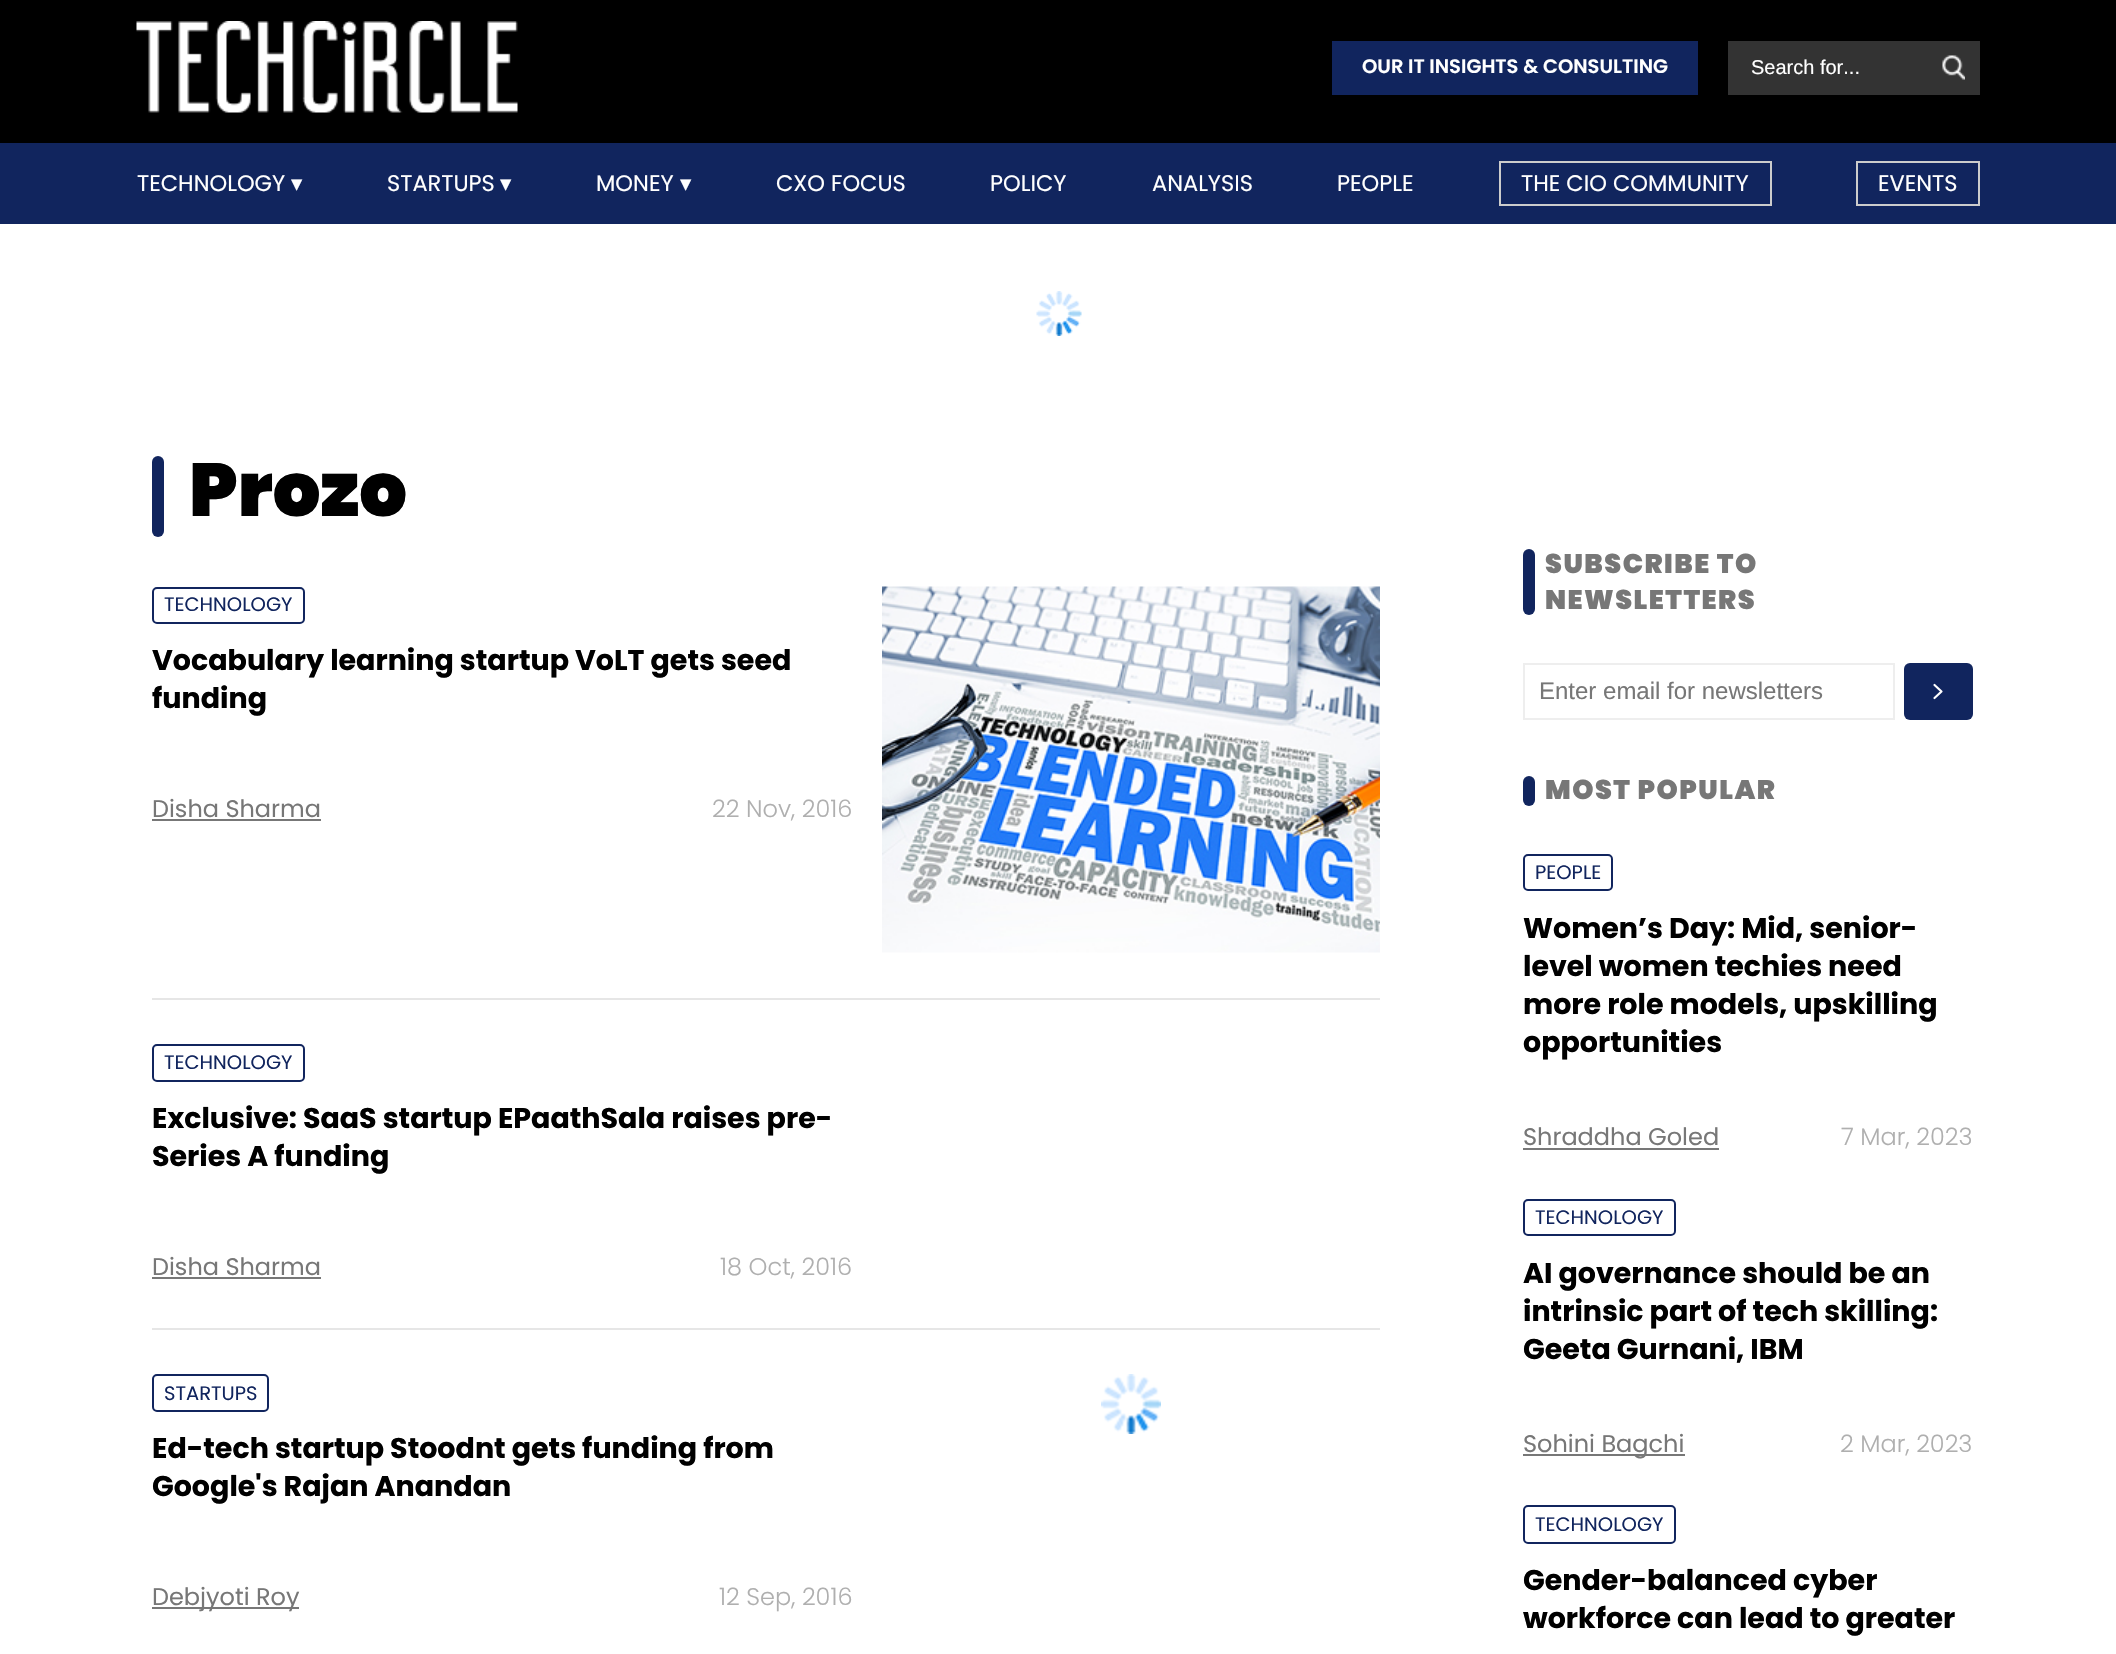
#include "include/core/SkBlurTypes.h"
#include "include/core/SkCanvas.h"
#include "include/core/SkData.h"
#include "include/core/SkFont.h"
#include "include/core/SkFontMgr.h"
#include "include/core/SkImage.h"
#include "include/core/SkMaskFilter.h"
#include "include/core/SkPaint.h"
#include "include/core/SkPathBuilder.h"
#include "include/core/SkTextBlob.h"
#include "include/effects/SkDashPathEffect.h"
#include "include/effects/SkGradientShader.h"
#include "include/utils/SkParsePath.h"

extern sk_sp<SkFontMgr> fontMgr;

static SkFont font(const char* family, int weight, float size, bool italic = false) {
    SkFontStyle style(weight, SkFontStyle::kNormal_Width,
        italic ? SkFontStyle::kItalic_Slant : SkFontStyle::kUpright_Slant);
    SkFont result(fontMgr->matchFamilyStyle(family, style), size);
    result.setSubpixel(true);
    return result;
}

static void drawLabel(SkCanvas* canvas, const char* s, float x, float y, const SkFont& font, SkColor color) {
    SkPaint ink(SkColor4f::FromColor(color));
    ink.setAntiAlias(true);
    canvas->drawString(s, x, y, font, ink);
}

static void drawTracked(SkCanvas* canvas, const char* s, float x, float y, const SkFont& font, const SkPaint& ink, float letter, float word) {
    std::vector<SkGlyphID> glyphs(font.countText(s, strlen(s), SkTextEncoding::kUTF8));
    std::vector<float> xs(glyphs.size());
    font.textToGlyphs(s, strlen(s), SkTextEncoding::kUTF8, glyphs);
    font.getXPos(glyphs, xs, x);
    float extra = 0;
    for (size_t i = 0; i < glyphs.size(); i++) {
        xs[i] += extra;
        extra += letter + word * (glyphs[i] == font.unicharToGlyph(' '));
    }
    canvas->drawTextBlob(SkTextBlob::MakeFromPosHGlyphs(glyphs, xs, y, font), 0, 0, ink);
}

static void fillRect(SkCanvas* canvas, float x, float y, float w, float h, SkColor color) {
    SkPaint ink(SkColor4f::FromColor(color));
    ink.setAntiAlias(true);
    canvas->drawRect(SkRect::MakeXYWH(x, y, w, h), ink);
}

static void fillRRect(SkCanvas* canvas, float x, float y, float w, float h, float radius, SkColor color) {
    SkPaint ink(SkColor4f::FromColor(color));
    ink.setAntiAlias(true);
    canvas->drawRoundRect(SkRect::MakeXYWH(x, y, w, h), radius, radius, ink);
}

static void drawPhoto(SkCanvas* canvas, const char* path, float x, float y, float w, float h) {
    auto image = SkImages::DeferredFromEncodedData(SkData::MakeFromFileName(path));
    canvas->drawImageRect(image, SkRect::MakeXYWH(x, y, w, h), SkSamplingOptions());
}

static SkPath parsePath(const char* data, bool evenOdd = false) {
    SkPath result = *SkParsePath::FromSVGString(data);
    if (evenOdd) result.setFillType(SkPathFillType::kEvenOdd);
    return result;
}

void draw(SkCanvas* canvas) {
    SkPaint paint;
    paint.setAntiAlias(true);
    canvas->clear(0xFFFFFFFF);
    fillRect(canvas, 0, 0, 2116, 143, 0xFF000000);
    drawPhoto(canvas, "assets/img1.png", 136, 21, 382, 92);
    fillRect(canvas, 1332, 41, 366, 54, 0xFF11255E);
    SkFont font1 = font("Poppins", 600, 19.5f);
    drawLabel(canvas, "OUR IT INSIGHTS & CONSULTING", 1362, 73, font1, 0xFFFFFFFF);
    fillRect(canvas, 1728, 41, 252, 54, 0xFF333333);
    SkFont font2 = font("Liberation Sans", 400, 20);
    drawLabel(canvas, "Search for...", 1751, 74, font2, 0xFFFFFFFF);
    drawPhoto(canvas, "assets/img2.png", 1942, 55, 23, 25);
    fillRect(canvas, 0, 143, 2116, 81, 0xFF11255E);
    SkFont font3 = font("Poppins", 400, 22.5f);
    drawLabel(canvas, "TECHNOLOGY", 137, 191, font3, 0xFFFFFFFF);
    SkFont font4 = font("DejaVu Sans", 400, 22.5f);
    drawLabel(canvas, "▾", 291, 191, font4, 0xFFFFFFFF);
    drawLabel(canvas, "STARTUPS", 387, 191, font3, 0xFFFFFFFF);
    drawLabel(canvas, "▾", 500, 191, font4, 0xFFFFFFFF);
    drawLabel(canvas, "MONEY", 596, 191, font3, 0xFFFFFFFF);
    drawLabel(canvas, "▾", 680, 191, font4, 0xFFFFFFFF);
    drawLabel(canvas, "CXO FOCUS", 776, 191, font3, 0xFFFFFFFF);
    drawLabel(canvas, "POLICY", 990, 191, font3, 0xFFFFFFFF);
    drawLabel(canvas, "ANALYSIS", 1152, 191, font3, 0xFFFFFFFF);
    drawLabel(canvas, "PEOPLE", 1337, 191, font3, 0xFFFFFFFF);
    paint.setStroke(true);
    paint.setStrokeWidth(2);
    paint.setColor(0xFFCCCCCC);
    canvas->drawRect(SkRect::MakeXYWH(1500, 162, 271, 43), paint);
    drawLabel(canvas, "THE CIO COMMUNITY", 1521, 191, font3, 0xFFFFFFFF);
    canvas->drawRect(SkRect::MakeXYWH(1857, 162, 122, 43), paint);
    drawLabel(canvas, "EVENTS", 1878, 191, font3, 0xFFFFFFFF);
    drawPhoto(canvas, "assets/img3.png", 1036, 291, 46, 45);
    fillRRect(canvas, 152, 456, 12, 81, 6, 0xFF11255E);
    SkFont font5 = font("Poppins", 900, 75);
    drawLabel(canvas, "Prozo", 189, 516, font5, 0xFF000000);
    fillRect(canvas, 152, 998, 1228, 2, 0xFFE6E6E6);
    paint.setColor(0xFF11255E);
    canvas->drawRoundRect(SkRect::MakeXYWH(153, 588, 151, 35), 4, 4, paint);
    SkFont font6 = font("Poppins", 400, 19.5f);
    drawLabel(canvas, "TECHNOLOGY", 164, 611, font6, 0xFF11255E);
    SkFont font7 = font("Poppins", 700, 28.5f);
    drawLabel(canvas, "Vocabulary learning startup VoLT gets seed", 152, 670, font7, 0xFF000000);
    drawLabel(canvas, "funding", 152, 708, font7, 0xFF000000);
    SkFont font8 = font("Poppins", 400, 24);
    drawLabel(canvas, "Disha Sharma", 152, 817, font8, 0xFF777777);
    fillRect(canvas, 152, 819, 169, 2, 0xFF777777);
    SkFont font9 = font("Poppins", 300, 24);
    drawLabel(canvas, "22 Nov, 2016", 712, 817, font9, 0xFFAFAFAF);
    drawPhoto(canvas, "assets/img4.png", 882, 586, 498, 367);
    fillRect(canvas, 152, 1328, 1228, 2, 0xFFE6E6E6);
    canvas->drawRoundRect(SkRect::MakeXYWH(153, 1045, 151, 36), 4, 4, paint);
    drawLabel(canvas, "TECHNOLOGY", 164, 1069, font6, 0xFF11255E);
    drawLabel(canvas, "Exclusive: SaaS startup EPaathSala raises pre-", 152, 1128, font7, 0xFF000000);
    drawLabel(canvas, "Series A funding", 152, 1166, font7, 0xFF000000);
    drawLabel(canvas, "Disha Sharma", 152, 1275, font8, 0xFF777777);
    fillRect(canvas, 152, 1277, 169, 2, 0xFF777777);
    drawLabel(canvas, "18 Oct, 2016", 720, 1275, font9, 0xFFAFAFAF);
    canvas->drawRoundRect(SkRect::MakeXYWH(153, 1375, 115, 36), 4, 4, paint);
    drawLabel(canvas, "STARTUPS", 164, 1400, font6, 0xFF11255E);
    drawLabel(canvas, "Ed-tech startup Stoodnt gets funding from", 152, 1458, font7, 0xFF000000);
    drawLabel(canvas, "Google's Rajan Anandan", 152, 1496, font7, 0xFF000000);
    fillRect(canvas, 152, 1607, 147, 2, 0xFF777777);
    drawLabel(canvas, "Debjyoti Roy", 152, 1605, font8, 0xFF777777);
    drawLabel(canvas, "12 Sep, 2016", 719, 1605, font9, 0xFFAFAFAF);
    drawPhoto(canvas, "assets/img5.png", 1101, 1374, 60, 60);
    fillRRect(canvas, 1523, 549, 12, 66, 6, 0xFF11255E);
    SkFont font10 = font("Poppins", 900, 27);
    paint.setStroke(false);
    paint.setColor(0xFF777777);
    drawTracked(canvas, "SUBSCRIBE TO", 1545, 573, font10, paint, 1.5f, 0);
    drawTracked(canvas, "NEWSLETTERS", 1545, 609, font10, paint, 1.5f, 0);
    paint.setStroke(true);
    paint.setColor(0xFFEEEEEE);
    canvas->drawRect(SkRect::MakeXYWH(1524, 664, 370, 55), paint);
    SkFont font11 = font("Liberation Sans", 400, 24);
    drawLabel(canvas, "Enter email for newsletters", 1539, 699, font11, 0xFF777777);
    fillRRect(canvas, 1904, 663, 69, 57, 6, 0xFF11255E);
    paint.setStrokeWidth(2.2f);
    paint.setStrokeCap(SkPaint::kRound_Cap);
    paint.setStrokeJoin(SkPaint::kRound_Join);
    paint.setColor(0xFFFFFFFF);
    canvas->drawPath(parsePath("M1934.5 685L1941.5 691.5L1934.5 698"), paint);
    fillRRect(canvas, 1523, 776, 12, 30, 6, 0xFF11255E);
    paint.setStroke(false);
    paint.setColor(0xFF777777);
    drawTracked(canvas, "MOST POPULAR", 1545, 799, font10, paint, 1.5f, 0);
    paint.setStroke(true);
    paint.setStrokeWidth(2);
    paint.setStrokeCap(SkPaint::kButt_Cap);
    paint.setStrokeJoin(SkPaint::kMiter_Join);
    paint.setColor(0xFF11255E);
    canvas->drawRoundRect(SkRect::MakeXYWH(1524, 855, 88, 35), 4, 4, paint);
    drawLabel(canvas, "PEOPLE", 1535, 879, font6, 0xFF11255E);
    drawLabel(canvas, "Women’s Day: Mid, senior-", 1523, 938, font7, 0xFF000000);
    drawLabel(canvas, "level women techies need", 1523, 976, font7, 0xFF000000);
    drawLabel(canvas, "more role models, upskilling", 1523, 1014, font7, 0xFF000000);
    drawLabel(canvas, "opportunities", 1523, 1052, font7, 0xFF000000);
    drawLabel(canvas, "Shraddha Goled", 1523, 1145, font8, 0xFF777777);
    fillRect(canvas, 1523, 1148, 196, 2, 0xFF777777);
    drawLabel(canvas, "7 Mar, 2023", 1841, 1145, font9, 0xFFAFAFAF);
    canvas->drawRoundRect(SkRect::MakeXYWH(1524, 1200, 151, 35), 4, 4, paint);
    drawLabel(canvas, "TECHNOLOGY", 1535, 1224, font6, 0xFF11255E);
    drawLabel(canvas, "AI governance should be an", 1523, 1283, font7, 0xFF000000);
    drawLabel(canvas, "intrinsic part of tech skilling:", 1523, 1321, font7, 0xFF000000);
    drawLabel(canvas, "Geeta Gurnani, IBM", 1523, 1359, font7, 0xFF000000);
    fillRect(canvas, 1523, 1454, 162, 2, 0xFF777777);
    drawLabel(canvas, "Sohini Bagchi", 1523, 1452, font8, 0xFF777777);
    drawLabel(canvas, "2 Mar, 2023", 1840, 1452, font9, 0xFFAFAFAF);
    canvas->drawRoundRect(SkRect::MakeXYWH(1524, 1506, 151, 37), 4, 4, paint);
    drawLabel(canvas, "TECHNOLOGY", 1535, 1531, font6, 0xFF11255E);
    drawLabel(canvas, "Gender-balanced cyber", 1523, 1590, font7, 0xFF000000);
    drawLabel(canvas, "workforce can lead to greater", 1523, 1628, font7, 0xFF000000);
}
